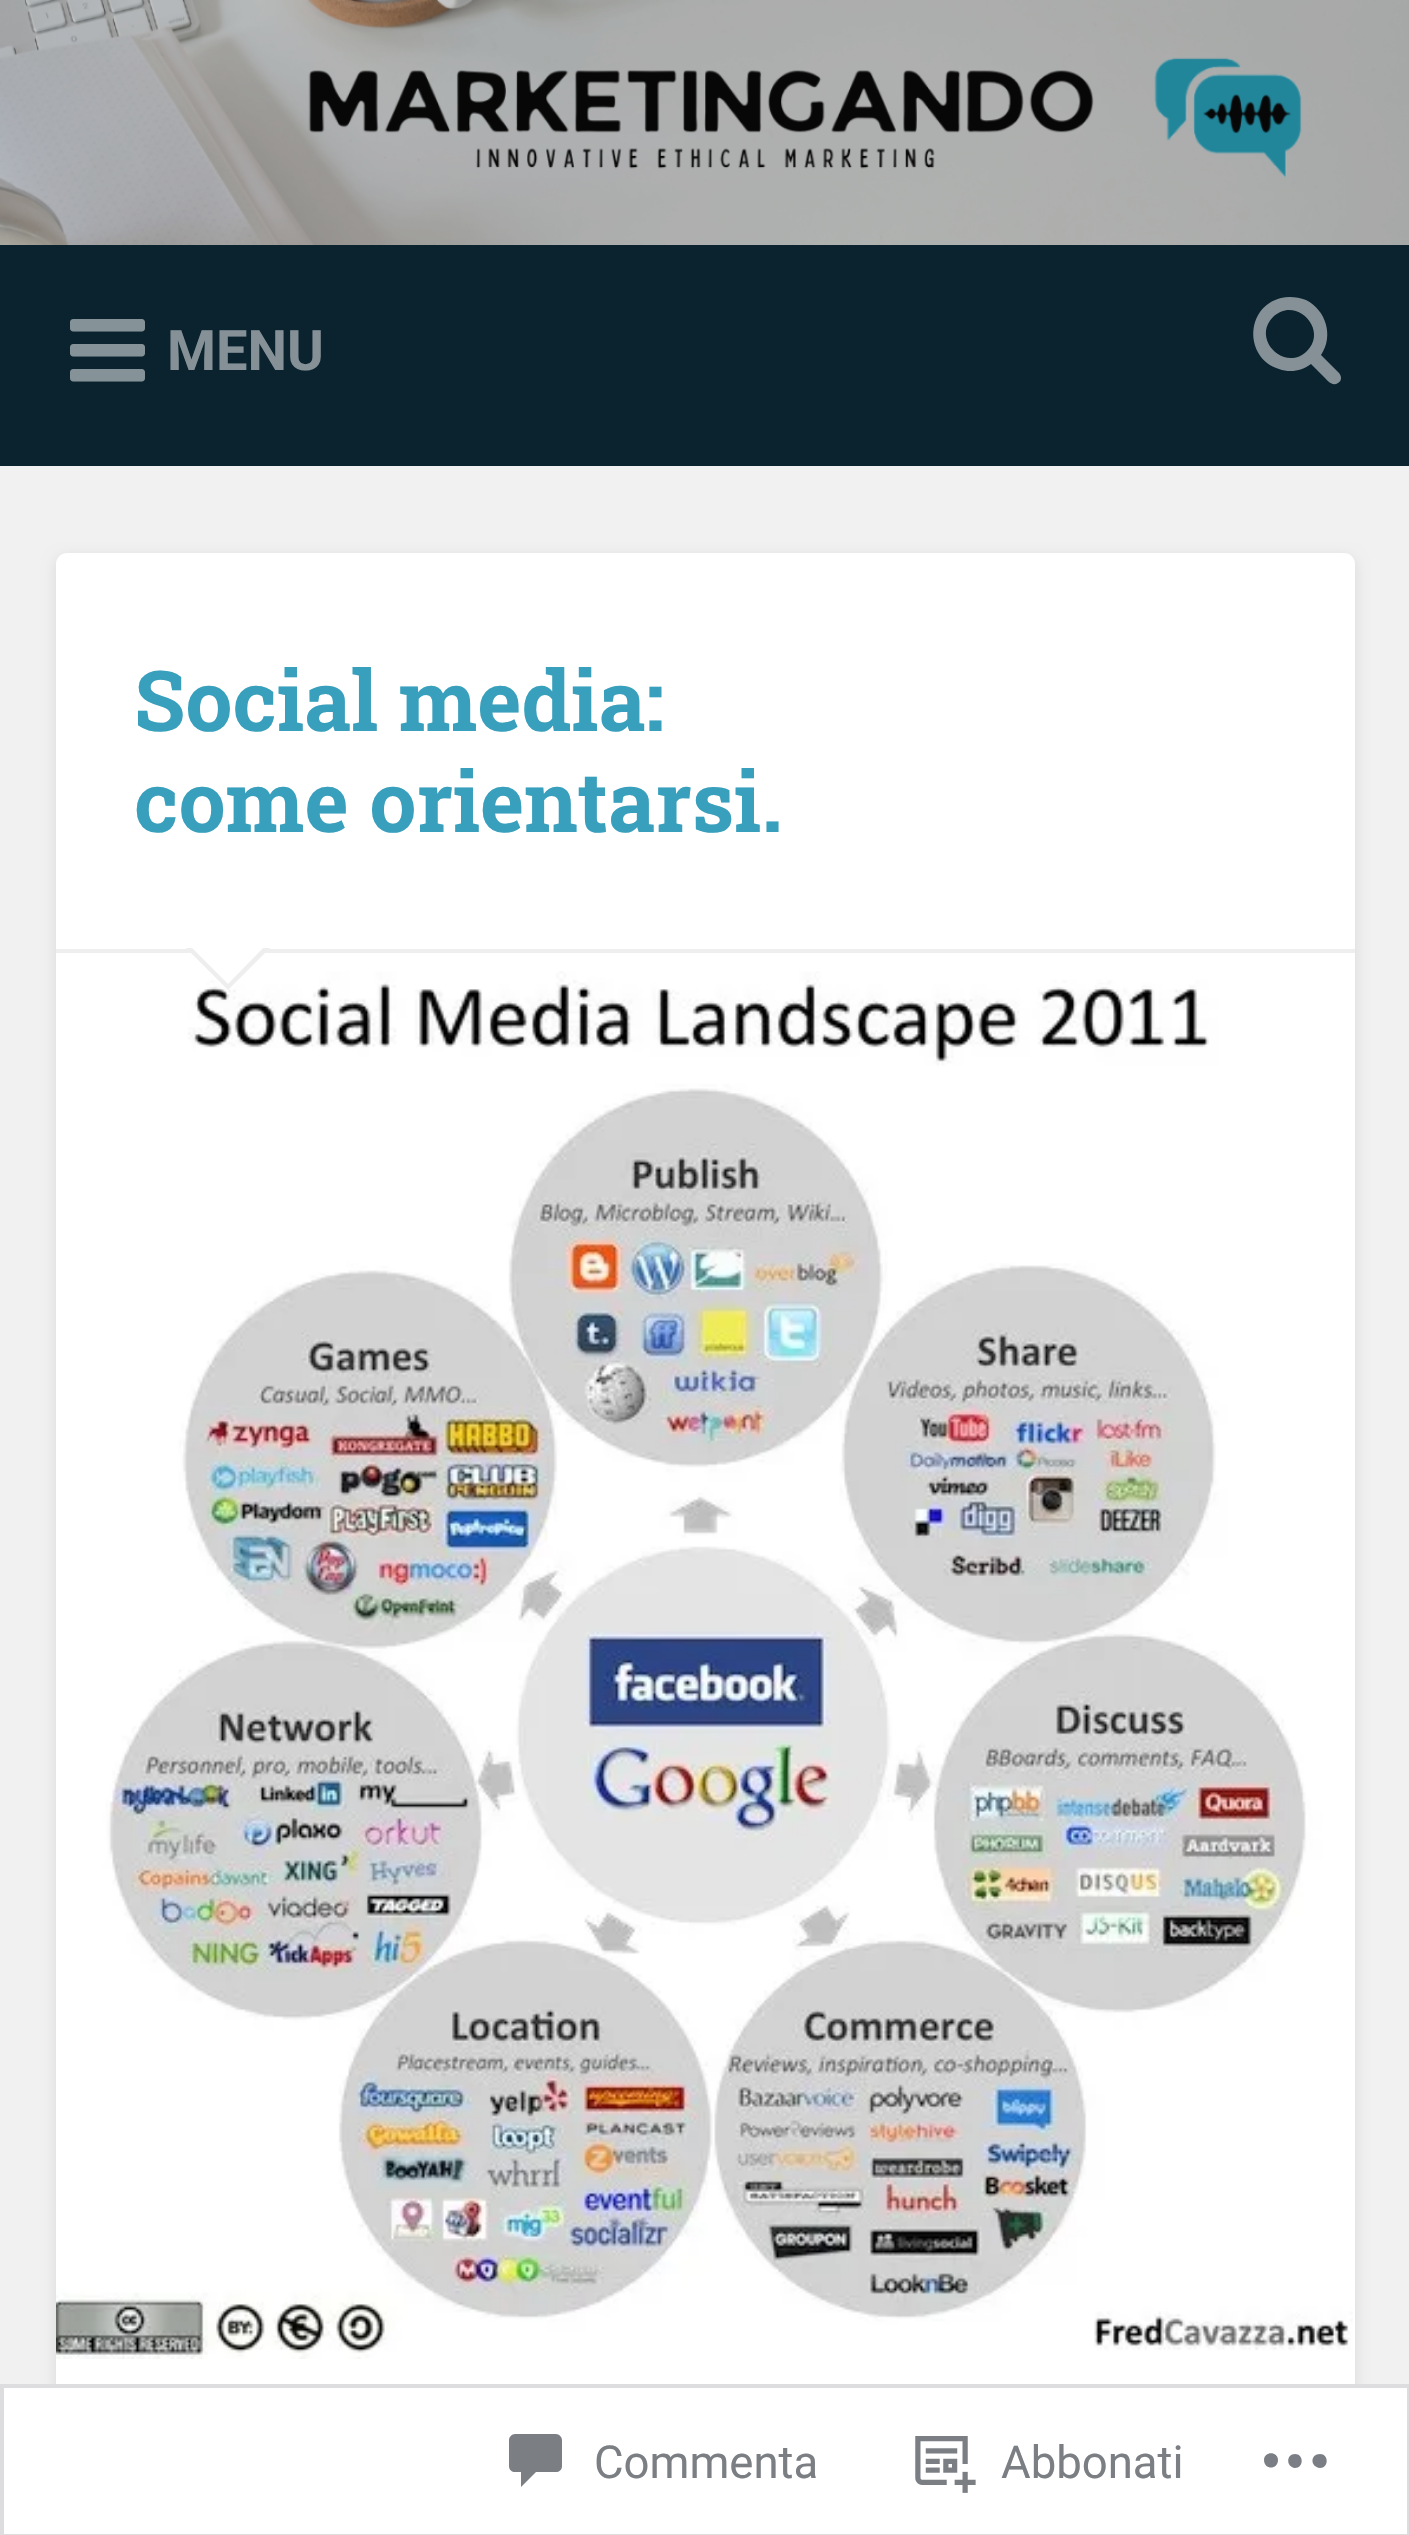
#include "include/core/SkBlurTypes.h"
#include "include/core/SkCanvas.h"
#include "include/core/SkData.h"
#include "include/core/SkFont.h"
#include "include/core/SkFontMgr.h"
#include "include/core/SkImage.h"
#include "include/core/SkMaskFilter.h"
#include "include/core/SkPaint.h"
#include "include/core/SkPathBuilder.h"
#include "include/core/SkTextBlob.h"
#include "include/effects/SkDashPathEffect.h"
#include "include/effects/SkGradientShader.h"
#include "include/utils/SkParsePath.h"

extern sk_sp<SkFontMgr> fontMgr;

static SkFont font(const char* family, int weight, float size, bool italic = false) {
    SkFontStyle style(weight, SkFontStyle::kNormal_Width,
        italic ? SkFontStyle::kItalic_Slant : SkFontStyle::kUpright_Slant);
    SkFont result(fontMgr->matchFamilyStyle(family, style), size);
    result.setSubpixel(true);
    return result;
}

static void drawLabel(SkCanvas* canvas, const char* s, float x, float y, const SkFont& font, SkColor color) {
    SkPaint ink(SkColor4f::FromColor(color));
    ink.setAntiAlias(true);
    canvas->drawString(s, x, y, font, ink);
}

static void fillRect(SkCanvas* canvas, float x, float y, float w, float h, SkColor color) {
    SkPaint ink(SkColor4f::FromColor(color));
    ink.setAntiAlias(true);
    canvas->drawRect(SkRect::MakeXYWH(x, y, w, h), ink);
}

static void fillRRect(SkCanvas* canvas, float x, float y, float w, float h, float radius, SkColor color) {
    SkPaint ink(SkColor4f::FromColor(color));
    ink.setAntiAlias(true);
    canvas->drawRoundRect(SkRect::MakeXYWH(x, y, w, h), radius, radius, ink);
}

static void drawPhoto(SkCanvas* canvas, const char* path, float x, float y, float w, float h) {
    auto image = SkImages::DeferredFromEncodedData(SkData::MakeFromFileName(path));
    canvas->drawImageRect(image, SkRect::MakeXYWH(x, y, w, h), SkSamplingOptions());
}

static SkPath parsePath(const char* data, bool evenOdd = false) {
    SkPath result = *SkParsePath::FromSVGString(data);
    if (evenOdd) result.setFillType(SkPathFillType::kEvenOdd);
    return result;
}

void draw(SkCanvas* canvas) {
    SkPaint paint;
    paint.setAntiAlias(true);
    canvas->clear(0xFFF1F1F2);
    drawPhoto(canvas, "assets/img1.png", 0, 0, 1409, 245);
    fillRect(canvas, 0, 245, 1409, 221, 0xFF0A232E);
    drawPhoto(canvas, "assets/img2.png", 70, 319, 75, 63);
    SkFont font1 = font("Roboto", 700, 56);
    drawLabel(canvas, "MENU", 167, 370, font1, 0xFF859197);
    paint.setColor(0xFF859197);
    canvas->drawPath(parsePath("M1307 351C1329 329 1295 295 1273 317C1251 339 1285 373 1307 351ZM1341 378C1341 380 1340 382 1338 383C1332 387 1327 380 1323 376L1311 364C1302 371 1290 373 1279 369C1244 358 1245 307 1281 298C1289 296 1298 297 1306 300C1326 310 1334 336 1321 355L1339 373C1340 374 1341 376 1341 378Z"), paint);
    paint.setColor(0x1A000000);
    paint.setMaskFilter(SkMaskFilter::MakeBlur(kNormal_SkBlurStyle, 7));
    canvas->drawRoundRect(SkRect::MakeXYWH(56, 557, 1299, 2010), 11, 11, paint);
    paint.setMaskFilter(nullptr);
    fillRRect(canvas, 56, 553, 1299, 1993, 11, 0xFFFFFFFF);
    fillRect(canvas, 56, 949, 1299, 4, 0xFFEEEEEE);
    SkFont font2 = font("Roboto Slab", 700, 84);
    drawLabel(canvas, "Social media:", 134, 731, font2, 0xFF389FBC);
    drawLabel(canvas, "come orientarsi.", 134, 832, font2, 0xFF389FBC);
    drawPhoto(canvas, "assets/img3.png", 56, 971, 1297, 1388);
    paint.setColor(0xFFEEEEEE);
    canvas->drawPath(parsePath("M186 948H270L228 990Z"), paint);
    paint.setColor(0xFFFFFFFF);
    canvas->drawPath(parsePath("M189 945H266L228 984Z"), paint);
    paint.setColor(0xFAFFFFFF);
    canvas->drawRect(SkRect::MakeXYWH(2, 2386, 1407, 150), paint);
    paint.setStroke(true);
    paint.setStrokeWidth(4);
    paint.setColor(0xFFDDDDDF);
    canvas->drawRect(SkRect::MakeXYWH(2, 2386, 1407, 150), paint);
    paint.setStroke(false);
    paint.setColor(0xFA787C82);
    canvas->drawPath(parsePath("M536 2472L521 2487V2472H515C512 2472 509 2470 509 2466V2440C509 2437 512 2434 515 2434H556C559 2434 562 2437 562 2440V2466C562 2470 559 2472 556 2472Z"), paint);
    SkFont font3 = font("Roboto", 400, 45.5f);
    drawLabel(canvas, "Commenta", 594, 2478, font3, 0xFF7B7F84);
    drawPhoto(canvas, "assets/img4.png", 915, 2436, 61, 57);
    drawLabel(canvas, "Abbonati", 1001, 2478, font3, 0xFF7B7F84);
    paint.setColor(0xFF7B7F85);
    canvas->drawPath(parsePath("M1278 2460C1278 2470 1264 2470 1264 2460C1264 2451 1278 2451 1278 2460ZM1320 2454C1310 2454 1310 2467 1320 2468C1329 2468 1329 2454 1320 2454ZM1295 2454C1286 2454 1286 2467 1295 2468C1304 2468 1304 2454 1295 2454Z"), paint);
}
